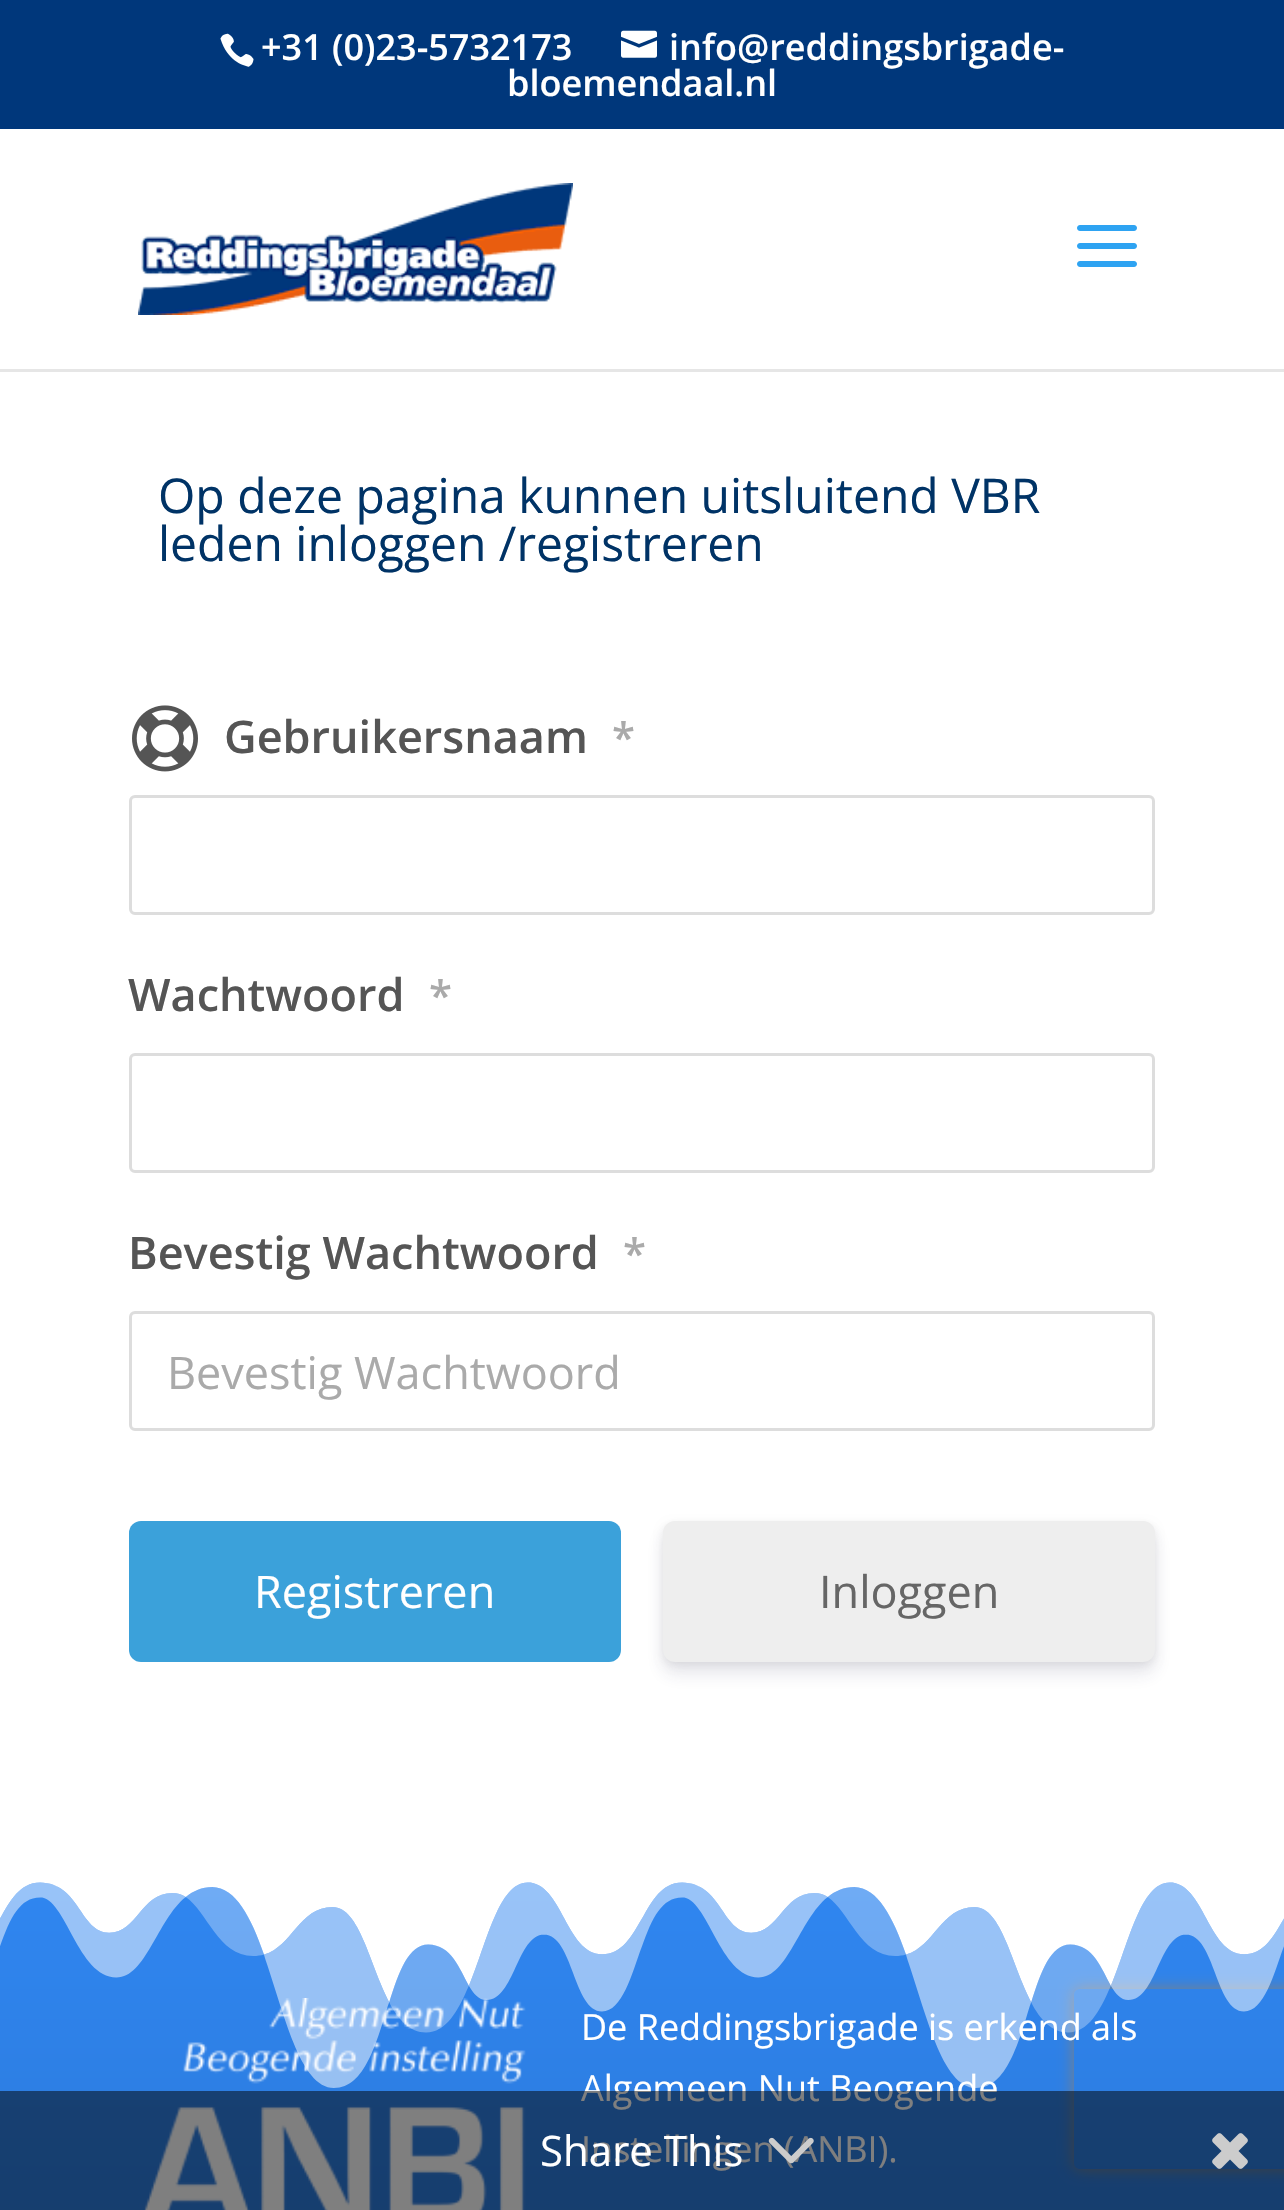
#include "include/core/SkBlurTypes.h"
#include "include/core/SkCanvas.h"
#include "include/core/SkData.h"
#include "include/core/SkFont.h"
#include "include/core/SkFontMgr.h"
#include "include/core/SkImage.h"
#include "include/core/SkMaskFilter.h"
#include "include/core/SkPaint.h"
#include "include/core/SkPathBuilder.h"
#include "include/core/SkTextBlob.h"
#include "include/effects/SkDashPathEffect.h"
#include "include/effects/SkGradientShader.h"
#include "include/utils/SkParsePath.h"

extern sk_sp<SkFontMgr> fontMgr;

static SkFont font(const char* family, int weight, float size, bool italic = false) {
    SkFontStyle style(weight, SkFontStyle::kNormal_Width,
        italic ? SkFontStyle::kItalic_Slant : SkFontStyle::kUpright_Slant);
    SkFont result(fontMgr->matchFamilyStyle(family, style), size);
    result.setSubpixel(true);
    return result;
}

static void drawLabel(SkCanvas* canvas, const char* s, float x, float y, const SkFont& font, SkColor color) {
    SkPaint ink(SkColor4f::FromColor(color));
    ink.setAntiAlias(true);
    canvas->drawString(s, x, y, font, ink);
}

static void fillRect(SkCanvas* canvas, float x, float y, float w, float h, SkColor color) {
    SkPaint ink(SkColor4f::FromColor(color));
    ink.setAntiAlias(true);
    canvas->drawRect(SkRect::MakeXYWH(x, y, w, h), ink);
}

static void fillRRect(SkCanvas* canvas, float x, float y, float w, float h, float radius, SkColor color) {
    SkPaint ink(SkColor4f::FromColor(color));
    ink.setAntiAlias(true);
    canvas->drawRoundRect(SkRect::MakeXYWH(x, y, w, h), radius, radius, ink);
}

static void drawPhoto(SkCanvas* canvas, const char* path, float x, float y, float w, float h) {
    auto image = SkImages::DeferredFromEncodedData(SkData::MakeFromFileName(path));
    canvas->drawImageRect(image, SkRect::MakeXYWH(x, y, w, h), SkSamplingOptions());
}

static SkPath parsePath(const char* data, bool evenOdd = false) {
    SkPath result = *SkParsePath::FromSVGString(data);
    if (evenOdd) result.setFillType(SkPathFillType::kEvenOdd);
    return result;
}

void draw(SkCanvas* canvas) {
    SkPaint paint;
    paint.setAntiAlias(true);
    canvas->clear(0xFFFFFFFF);
    fillRect(canvas, 0, 0, 1284, 129, 0xFF00377B);
    drawPhoto(canvas, "assets/img1.png", 220, 33, 34, 34);
    SkFont font1 = font("Open Sans", 600, 36);
    drawLabel(canvas, "+31 (0)23-5732173", 261, 60, font1, 0xFFFFFFFF);
    drawPhoto(canvas, "assets/img2.png", 621, 30, 36, 28);
    drawLabel(canvas, "info@reddingsbrigade-", 669, 60, font1, 0xFFFFFFFF);
    drawLabel(canvas, "bloemendaal.nl", 507, 96, font1, 0xFFFFFFFF);
    fillRect(canvas, 0, 369, 1284, 3, 0xFFE6E6E6);
    drawPhoto(canvas, "assets/img3.png", 138, 183, 435, 132);
    drawPhoto(canvas, "assets/img4.png", 1077, 225, 60, 42);
    SkFont font2 = font("Open Sans", 400, 48);
    drawLabel(canvas, "Op deze pagina kunnen uitsluitend VBR", 158, 513, font2, 0xFF003366);
    drawLabel(canvas, "leden inloggen /registreren", 158, 561, font2, 0xFF003366);
    drawPhoto(canvas, "assets/img5.png", 132, 705, 66, 67);
    SkFont font3 = font("Open Sans", 600, 45);
    drawLabel(canvas, "Gebruikersnaam", 224, 753, font3, 0xFF555555);
    SkFont font4 = font("Open Sans", 600, 42);
    drawLabel(canvas, "*", 612, 753, font4, 0xFFAAAAAA);
    paint.setStroke(true);
    paint.setStrokeWidth(3);
    paint.setColor(0xFFDDDDDD);
    canvas->drawRoundRect(SkRect::MakeXYWH(130.5f, 796.5f, 1023, 117), 4.5f, 4.5f, paint);
    drawLabel(canvas, "Wachtwoord", 128, 1011, font3, 0xFF555555);
    drawLabel(canvas, "*", 429, 1011, font4, 0xFFAAAAAA);
    canvas->drawRoundRect(SkRect::MakeXYWH(130.5f, 1054.5f, 1023, 117), 4.5f, 4.5f, paint);
    drawLabel(canvas, "Bevestig Wachtwoord", 128, 1269, font3, 0xFF555555);
    drawLabel(canvas, "*", 623, 1269, font4, 0xFFAAAAAA);
    canvas->drawRoundRect(SkRect::MakeXYWH(130.5f, 1312.5f, 1023, 117), 4.5f, 4.5f, paint);
    SkFont font5 = font("Open Sans", 400, 45);
    drawLabel(canvas, "Bevestig Wachtwoord", 167, 1389, font5, 0xFFAAAAAA);
    fillRRect(canvas, 129, 1521, 492, 141, 12, 0xFF3BA1DA);
    drawLabel(canvas, "Registreren", 254, 1608, font5, 0xFFFFFFFF);
    paint.setStroke(false);
    paint.setColor(0x14000000);
    paint.setMaskFilter(SkMaskFilter::MakeBlur(kNormal_SkBlurStyle, 4.5f));
    canvas->drawRoundRect(SkRect::MakeXYWH(663, 1524, 492, 141), 12, 12, paint);
    paint.setMaskFilter(nullptr);
    paint.setColor(0x1C32325D);
    paint.setMaskFilter(SkMaskFilter::MakeBlur(kNormal_SkBlurStyle, 9));
    canvas->drawRoundRect(SkRect::MakeXYWH(663, 1533, 492, 141), 12, 12, paint);
    paint.setMaskFilter(nullptr);
    fillRRect(canvas, 663, 1521, 492, 141, 12, 0xFFEEEEEE);
    drawLabel(canvas, "Inloggen", 819, 1608, font5, 0xFF666666);
    {
        const SkColor colors[] = {0xFF3087F2, 0xFF000411};
        const float stops[] = {0, 1};
        const SkPoint ends[] = {{642, 1857}, {642, 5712}};
        paint.setShader(SkGradientShader::MakeLinear(ends, colors, stops, 2, SkTileMode::kClamp));
        paint.setAlpha(255);
    }
    canvas->drawRect(SkRect::MakeXYWH(0, 1882, 1284, 328), paint);
    canvas->save();
    canvas->clipPath(parsePath("M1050 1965H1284V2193H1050ZM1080 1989H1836C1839.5 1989 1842 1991.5 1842 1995V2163C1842 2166.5 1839.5 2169 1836 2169H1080C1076.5 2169 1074 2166.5 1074 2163V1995C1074 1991.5 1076.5 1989 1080 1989Z", true), true);
    paint.setShader(nullptr);
    paint.setColor(0xFF808080);
    paint.setMaskFilter(SkMaskFilter::MakeBlur(kNormal_SkBlurStyle, 7.5f));
    canvas->drawRoundRect(SkRect::MakeXYWH(1074, 1989, 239, 180), 6, 6, paint);
    paint.setMaskFilter(nullptr);
    canvas->restore();
    drawPhoto(canvas, "assets/img6.png", 0, 1857, 1284, 231);
    drawPhoto(canvas, "assets/img7.png", 144, 1998, 382, 212);
    SkFont font6 = font("Open Sans", 400, 36);
    drawLabel(canvas, "De Reddingsbrigade is erkend als", 581, 2040, font6, 0xFFFFFFFF);
    drawLabel(canvas, "Algemeen Nut Beogende", 581, 2101, font6, 0xFFFFFFFF);
    drawLabel(canvas, "Instellingen (ANBI).", 581, 2162, font6, 0xFFFFFFFF);
    fillRect(canvas, 0, 2091, 1284, 119, 0x80000000);
    SkFont font7 = font("Open Sans", 400, 42);
    drawLabel(canvas, "Share This", 540, 2166, font7, 0xFFFFFFFF);
    drawPhoto(canvas, "assets/img8.png", 768, 2137, 46, 27);
    drawPhoto(canvas, "assets/img9.png", 1212, 2133, 36, 36);
}
